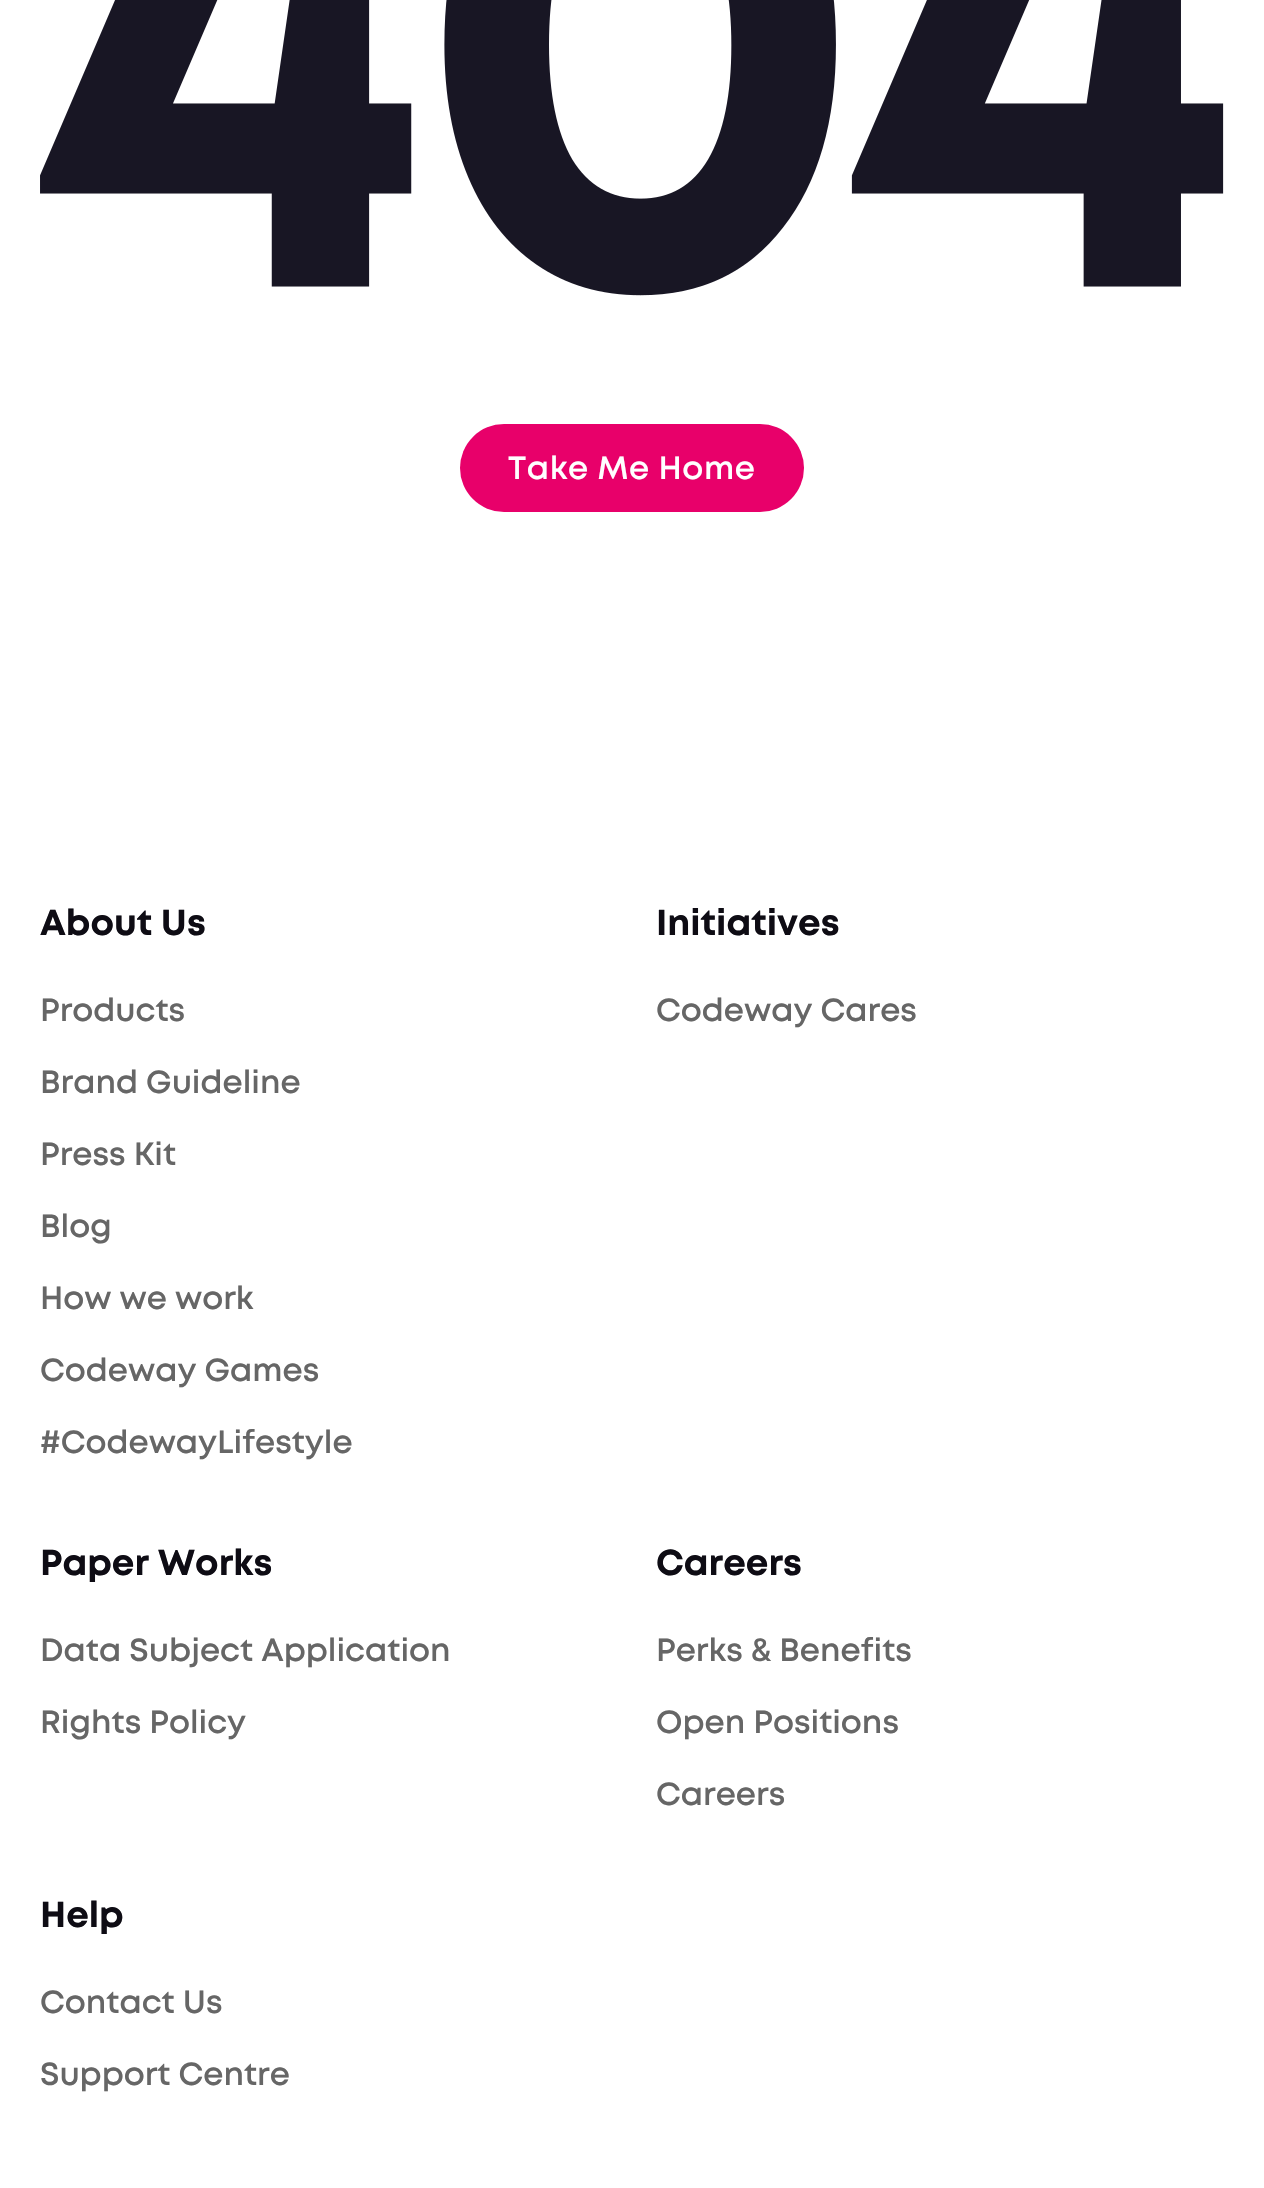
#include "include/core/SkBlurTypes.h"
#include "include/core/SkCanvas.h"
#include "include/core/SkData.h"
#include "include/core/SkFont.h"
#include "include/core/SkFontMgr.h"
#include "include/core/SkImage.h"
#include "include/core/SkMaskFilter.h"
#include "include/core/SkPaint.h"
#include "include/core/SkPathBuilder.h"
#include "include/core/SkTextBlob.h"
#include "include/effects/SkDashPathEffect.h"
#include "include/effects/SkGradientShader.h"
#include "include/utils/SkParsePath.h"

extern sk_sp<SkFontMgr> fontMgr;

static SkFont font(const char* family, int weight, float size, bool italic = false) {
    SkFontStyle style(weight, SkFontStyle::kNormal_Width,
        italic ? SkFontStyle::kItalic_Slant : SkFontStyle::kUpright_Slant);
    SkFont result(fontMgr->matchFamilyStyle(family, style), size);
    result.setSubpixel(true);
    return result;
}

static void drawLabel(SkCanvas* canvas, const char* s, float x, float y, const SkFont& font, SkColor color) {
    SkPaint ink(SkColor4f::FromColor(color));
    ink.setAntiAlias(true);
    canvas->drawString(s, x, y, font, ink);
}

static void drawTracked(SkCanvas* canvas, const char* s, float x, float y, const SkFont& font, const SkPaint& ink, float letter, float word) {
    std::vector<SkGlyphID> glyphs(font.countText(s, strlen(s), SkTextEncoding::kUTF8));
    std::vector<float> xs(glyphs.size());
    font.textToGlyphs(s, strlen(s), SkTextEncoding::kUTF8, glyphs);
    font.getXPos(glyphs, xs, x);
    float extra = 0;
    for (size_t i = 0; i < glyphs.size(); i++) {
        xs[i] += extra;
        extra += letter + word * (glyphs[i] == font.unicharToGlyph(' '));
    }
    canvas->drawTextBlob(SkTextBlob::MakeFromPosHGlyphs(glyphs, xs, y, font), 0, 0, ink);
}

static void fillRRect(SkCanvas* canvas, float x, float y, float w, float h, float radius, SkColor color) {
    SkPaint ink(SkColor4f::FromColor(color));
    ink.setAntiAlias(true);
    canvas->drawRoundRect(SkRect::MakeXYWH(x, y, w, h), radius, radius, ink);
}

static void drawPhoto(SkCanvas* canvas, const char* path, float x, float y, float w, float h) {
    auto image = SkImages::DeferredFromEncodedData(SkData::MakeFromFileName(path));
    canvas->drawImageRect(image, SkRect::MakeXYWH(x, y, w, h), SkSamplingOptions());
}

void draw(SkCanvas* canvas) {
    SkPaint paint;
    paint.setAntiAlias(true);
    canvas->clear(0xFFFFFFFF);
    drawPhoto(canvas, "assets/img1.png", 40, 0, 1184, 296);
    fillRRect(canvas, 460, 424, 344, 88, 44, 0xFFE8006A);
    SkFont font1 = font("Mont", 600, 32);
    paint.setColor(0xFFFFFFFF);
    drawTracked(canvas, "Take Me Home", 508, 479, font1, paint, 0.6f, 0);
    SkFont font2 = font("Mont", 700, 36);
    drawLabel(canvas, "About Us", 40, 935, font2, 0xFF0E0C14);
    drawLabel(canvas, "Products", 40, 1021, font1, 0xFF666666);
    drawLabel(canvas, "Brand Guideline", 40, 1093, font1, 0xFF666666);
    drawLabel(canvas, "Press Kit", 40, 1165, font1, 0xFF666666);
    drawLabel(canvas, "Blog", 40, 1237, font1, 0xFF666666);
    drawLabel(canvas, "How we work", 40, 1309, font1, 0xFF666666);
    drawLabel(canvas, "Codeway Games", 40, 1381, font1, 0xFF666666);
    drawLabel(canvas, "#CodewayLifestyle", 40, 1453, font1, 0xFF666666);
    drawLabel(canvas, "Initiatives", 656, 935, font2, 0xFF0E0C14);
    drawLabel(canvas, "Codeway Cares", 656, 1021, font1, 0xFF666666);
    drawLabel(canvas, "Paper Works", 40, 1575, font2, 0xFF0E0C14);
    drawLabel(canvas, "Data Subject Application", 40, 1661, font1, 0xFF666666);
    drawLabel(canvas, "Rights Policy", 40, 1733, font1, 0xFF666666);
    drawLabel(canvas, "Careers", 656, 1575, font2, 0xFF0E0C14);
    drawLabel(canvas, "Perks & Benefits", 656, 1661, font1, 0xFF666666);
    drawLabel(canvas, "Open Positions", 656, 1733, font1, 0xFF666666);
    drawLabel(canvas, "Careers", 656, 1805, font1, 0xFF666666);
    drawLabel(canvas, "Help", 40, 1927, font2, 0xFF0E0C14);
    drawLabel(canvas, "Contact Us", 40, 2013, font1, 0xFF666666);
    drawLabel(canvas, "Support Centre", 40, 2085, font1, 0xFF666666);
}
